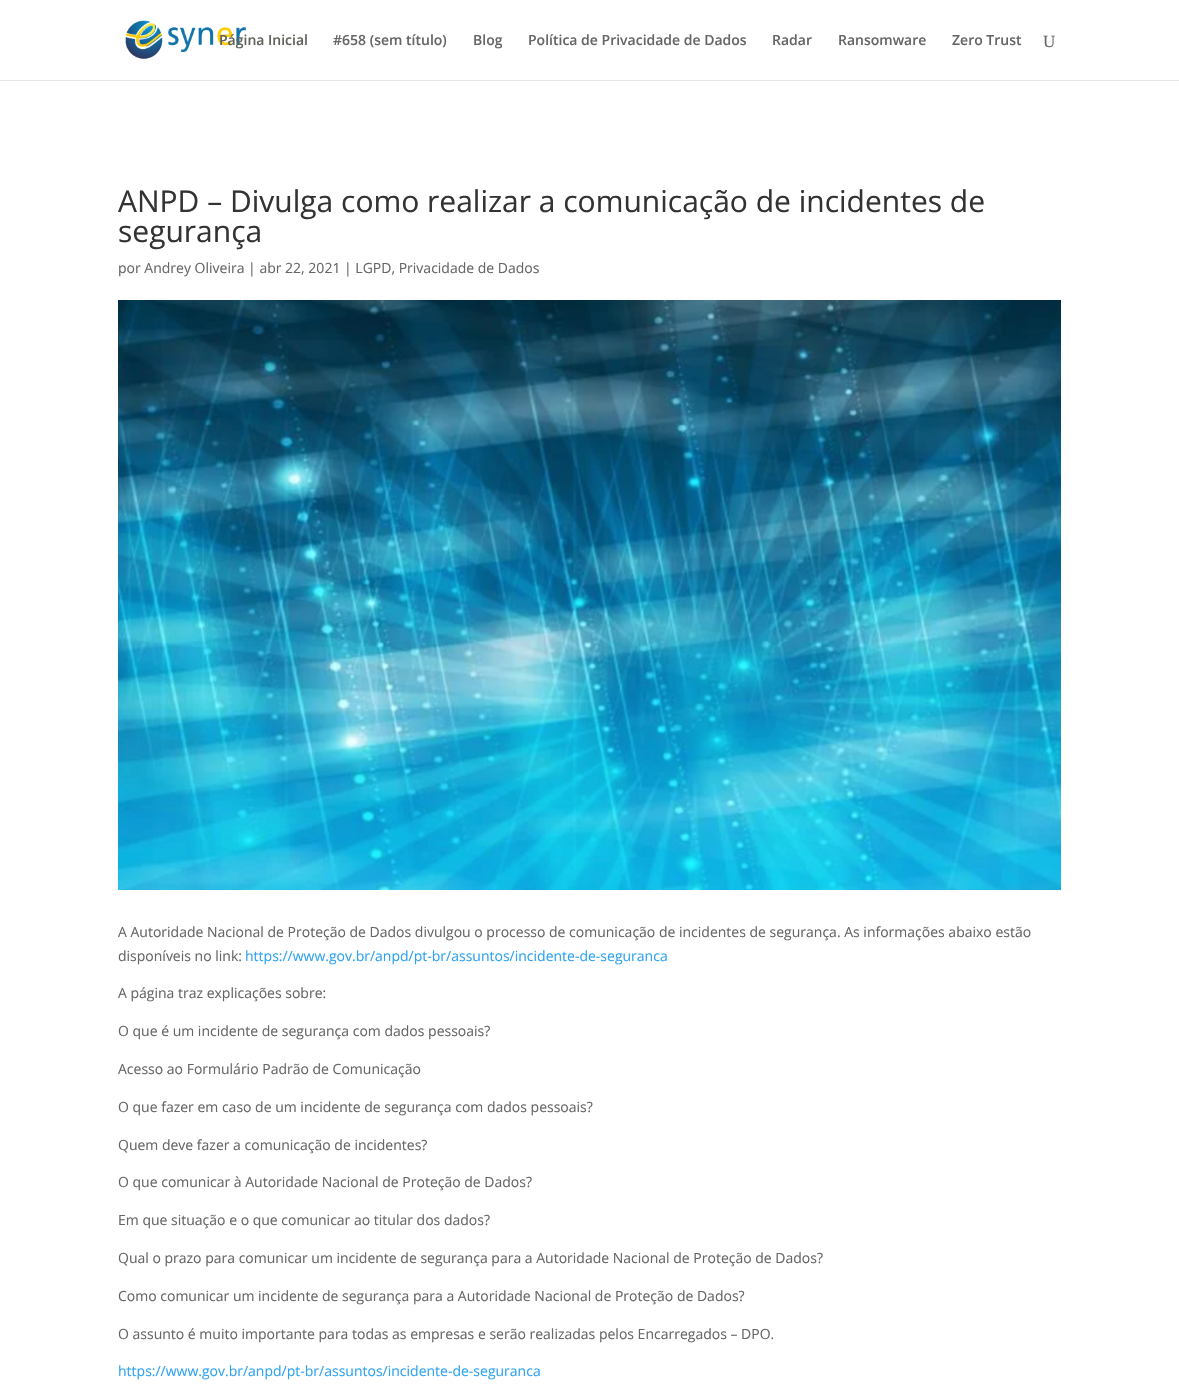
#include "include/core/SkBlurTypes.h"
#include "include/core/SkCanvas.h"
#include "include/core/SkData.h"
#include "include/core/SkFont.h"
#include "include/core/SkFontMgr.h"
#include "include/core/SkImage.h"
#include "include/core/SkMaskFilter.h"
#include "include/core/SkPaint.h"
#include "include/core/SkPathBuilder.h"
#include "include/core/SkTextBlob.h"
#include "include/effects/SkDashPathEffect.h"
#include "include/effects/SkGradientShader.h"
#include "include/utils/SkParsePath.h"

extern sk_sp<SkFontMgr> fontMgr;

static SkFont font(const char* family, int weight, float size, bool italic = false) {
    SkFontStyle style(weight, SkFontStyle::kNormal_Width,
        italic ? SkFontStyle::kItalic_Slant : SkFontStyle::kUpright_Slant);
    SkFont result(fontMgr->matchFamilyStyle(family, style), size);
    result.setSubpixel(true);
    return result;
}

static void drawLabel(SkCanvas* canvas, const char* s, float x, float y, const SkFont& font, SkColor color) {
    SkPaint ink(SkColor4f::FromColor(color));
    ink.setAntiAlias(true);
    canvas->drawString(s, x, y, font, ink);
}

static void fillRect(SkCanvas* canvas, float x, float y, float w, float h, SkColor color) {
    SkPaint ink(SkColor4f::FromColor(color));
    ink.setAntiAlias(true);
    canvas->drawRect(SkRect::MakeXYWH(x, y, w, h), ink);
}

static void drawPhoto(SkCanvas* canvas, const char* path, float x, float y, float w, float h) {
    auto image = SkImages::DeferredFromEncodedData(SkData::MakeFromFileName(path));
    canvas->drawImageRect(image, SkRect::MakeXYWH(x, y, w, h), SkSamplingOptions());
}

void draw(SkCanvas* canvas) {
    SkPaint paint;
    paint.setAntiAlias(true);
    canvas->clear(0xFFFFFFFF);
    fillRect(canvas, 0, 80, 1179, 1, 0xFFE6E6E6);
    drawPhoto(canvas, "assets/img1.png", 125, 20, 121, 39);
    SkFont font1 = font("Open Sans", 600, 14);
    drawLabel(canvas, "Página Inicial", 219, 45, font1, 0xFF62625C);
    drawLabel(canvas, "#658 (sem título)", 333, 45, font1, 0xFF666666);
    drawLabel(canvas, "Blog", 473, 45, font1, 0xFF666666);
    drawLabel(canvas, "Política de Privacidade de Dados", 528, 45, font1, 0xFF666666);
    drawLabel(canvas, "Radar", 772, 45, font1, 0xFF666666);
    drawLabel(canvas, "Ransomware", 838, 45, font1, 0xFF666666);
    drawLabel(canvas, "Zero Trust", 952, 45, font1, 0xFF666666);
    SkFont font2 = font("Liberation Serif", 400, 17);
    drawLabel(canvas, "U", 1043, 47, font2, 0xFF666666);
    SkFont font3 = font("Open Sans", 400, 30);
    drawLabel(canvas, "ANPD – Divulga como realizar a comunicação de incidentes de", 118, 212, font3, 0xFF333333);
    drawLabel(canvas, "segurança", 118, 242, font3, 0xFF333333);
    SkFont font4 = font("Open Sans", 400, 14);
    drawLabel(canvas, "por Andrey Oliveira | abr 22, 2021 | LGPD, Privacidade de Dados", 118, 273, font4, 0xFF666666);
    drawPhoto(canvas, "assets/img2.png", 118, 300, 943, 590);
    drawLabel(canvas, "A Autoridade Nacional de Proteção de Dados divulgou o processo de comunicação de incidentes de segurança. As informações abaixo estão", 118, 937, font4, 0xFF666666);
    drawLabel(canvas, "disponíveis no link:", 118, 961, font4, 0xFF666666);
    drawLabel(canvas, "https://www.gov.br/anpd/pt-br/assuntos/incidente-de-seguranca", 245, 961, font4, 0xFF2EA3F2);
    drawLabel(canvas, "A página traz explicações sobre:", 118, 998, font4, 0xFF666666);
    drawLabel(canvas, "O que é um incidente de segurança com dados pessoais?", 118, 1036, font4, 0xFF666666);
    drawLabel(canvas, "Acesso ao Formulário Padrão de Comunicação", 118, 1074, font4, 0xFF666666);
    drawLabel(canvas, "O que fazer em caso de um incidente de segurança com dados pessoais?", 118, 1112, font4, 0xFF666666);
    drawLabel(canvas, "Quem deve fazer a comunicação de incidentes?", 118, 1150, font4, 0xFF666666);
    drawLabel(canvas, "O que comunicar à Autoridade Nacional de Proteção de Dados?", 118, 1187, font4, 0xFF666666);
    drawLabel(canvas, "Em que situação e o que comunicar ao titular dos dados?", 118, 1225, font4, 0xFF666666);
    drawLabel(canvas, "Qual o prazo para comunicar um incidente de segurança para a Autoridade Nacional de Proteção de Dados?", 118, 1263, font4, 0xFF666666);
    drawLabel(canvas, "Como comunicar um incidente de segurança para a Autoridade Nacional de Proteção de Dados?", 118, 1301, font4, 0xFF666666);
    drawLabel(canvas, "O assunto é muito importante para todas as empresas e serão realizadas pelos Encarregados – DPO.", 118, 1339, font4, 0xFF666666);
    drawLabel(canvas, "https://www.gov.br/anpd/pt-br/assuntos/incidente-de-seguranca", 118, 1376, font4, 0xFF2EA3F2);
}
